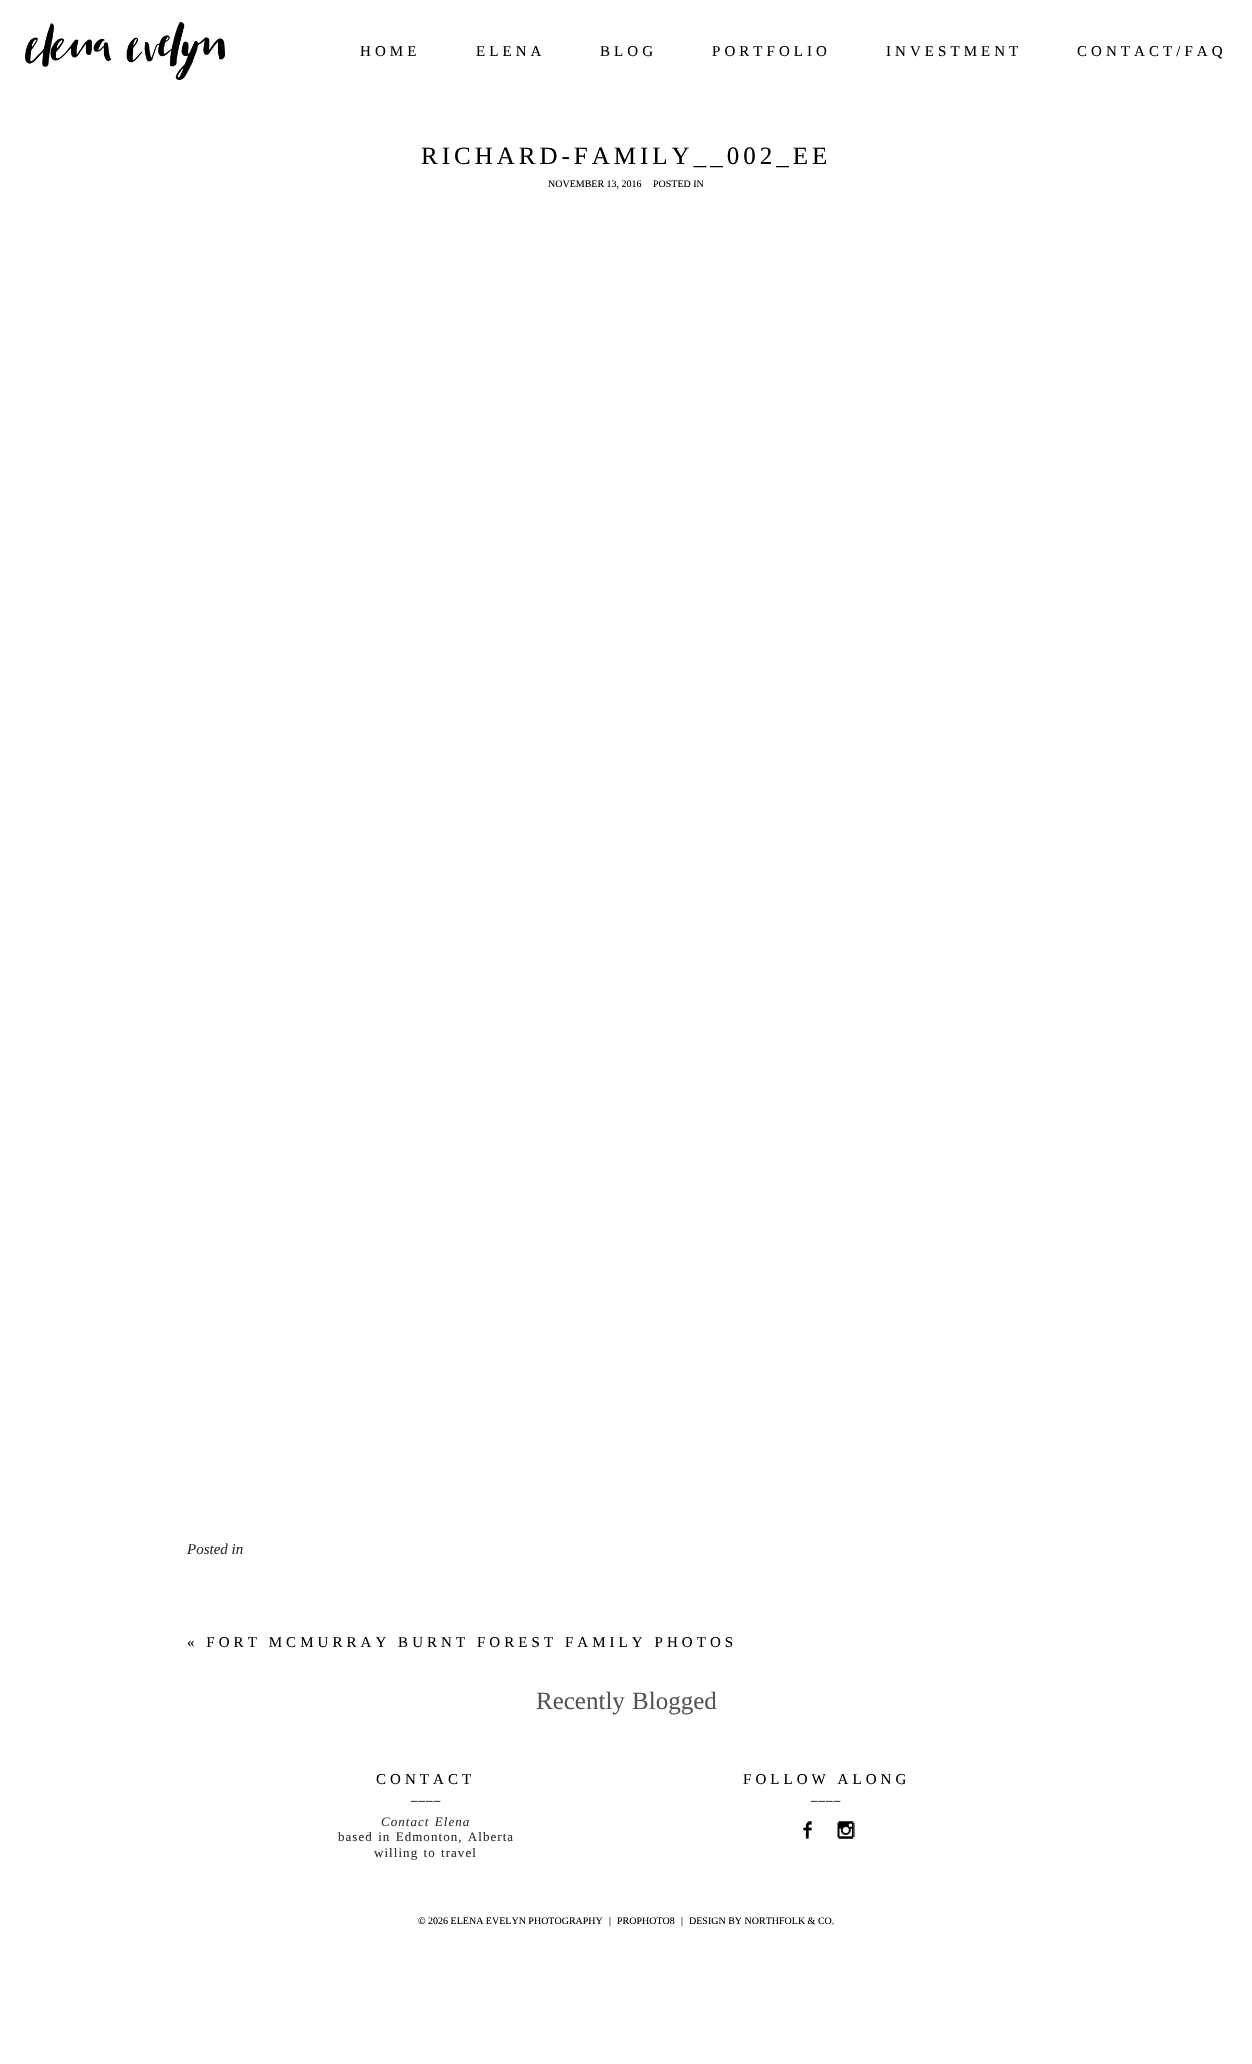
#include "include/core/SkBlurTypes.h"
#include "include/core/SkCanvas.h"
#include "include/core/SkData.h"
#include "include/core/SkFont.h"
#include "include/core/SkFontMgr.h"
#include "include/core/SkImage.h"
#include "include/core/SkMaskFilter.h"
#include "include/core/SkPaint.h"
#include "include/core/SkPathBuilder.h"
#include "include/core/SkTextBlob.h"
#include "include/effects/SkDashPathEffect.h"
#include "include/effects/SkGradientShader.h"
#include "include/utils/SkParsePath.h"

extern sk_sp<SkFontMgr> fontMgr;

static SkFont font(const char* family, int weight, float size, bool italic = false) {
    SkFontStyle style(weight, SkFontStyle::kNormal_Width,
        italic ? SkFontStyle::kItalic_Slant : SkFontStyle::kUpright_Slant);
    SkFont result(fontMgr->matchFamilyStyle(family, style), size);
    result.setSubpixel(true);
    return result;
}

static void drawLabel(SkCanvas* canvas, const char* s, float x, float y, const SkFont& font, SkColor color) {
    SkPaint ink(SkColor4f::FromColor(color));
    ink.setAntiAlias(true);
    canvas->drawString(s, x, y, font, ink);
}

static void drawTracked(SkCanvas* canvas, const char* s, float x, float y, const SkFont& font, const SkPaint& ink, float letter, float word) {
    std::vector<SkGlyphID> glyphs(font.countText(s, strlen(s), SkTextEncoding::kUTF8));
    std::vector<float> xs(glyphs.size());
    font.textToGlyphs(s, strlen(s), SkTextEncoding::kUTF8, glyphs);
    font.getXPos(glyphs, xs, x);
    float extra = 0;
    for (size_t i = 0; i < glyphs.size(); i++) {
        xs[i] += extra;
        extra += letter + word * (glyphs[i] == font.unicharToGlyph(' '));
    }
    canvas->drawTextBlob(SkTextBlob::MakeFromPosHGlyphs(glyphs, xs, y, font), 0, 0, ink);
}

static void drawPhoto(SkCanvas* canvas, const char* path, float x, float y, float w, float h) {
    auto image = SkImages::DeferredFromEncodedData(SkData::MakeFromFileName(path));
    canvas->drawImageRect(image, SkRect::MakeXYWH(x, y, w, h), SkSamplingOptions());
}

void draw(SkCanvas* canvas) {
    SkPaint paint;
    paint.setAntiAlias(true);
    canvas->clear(0xFFFFFFFF);
    drawPhoto(canvas, "assets/img1.png", 25, 22, 200, 58);
    SkFont font1 = font("Liberation Serif", 400, 15);
    paint.setColor(0xFF000000);
    drawTracked(canvas, "HOME", 360, 56, font1, paint, 4.05f, 0);
    drawTracked(canvas, "ELENA", 476, 56, font1, paint, 4.05f, 0);
    drawTracked(canvas, "BLOG", 600, 56, font1, paint, 4.05f, 0);
    drawTracked(canvas, "PORTFOLIO", 712, 56, font1, paint, 4.05f, 0);
    drawTracked(canvas, "INVESTMENT", 886, 56, font1, paint, 4.05f, 0);
    drawTracked(canvas, "CONTACT/FAQ", 1077, 56, font1, paint, 4.05f, 0);
    SkFont font2 = font("Liberation Serif", 400, 25);
    drawTracked(canvas, "RICHARD-FAMILY__002_EE", 421, 164, font2, paint, 4, 0);
    SkFont font3 = font("Liberation Serif", 400, 10);
    drawLabel(canvas, "NOVEMBER 13, 2016", 548, 187, font3, 0xFF000000);
    drawLabel(canvas, "POSTED IN", 653, 187, font3, 0xFF000000);
    SkFont font4 = font("Liberation Serif", 400, 15, true);
    drawLabel(canvas, "Posted in", 187, 1554, font4, 0xFF2F2F2D);
    drawTracked(canvas, "« FORT MCMURRAY BURNT FOREST FAMILY PHOTOS", 187, 1647, font1, paint, 4.05f, 0);
    paint.setColor(0xFF545454);
    drawTracked(canvas, "Recently Blogged", 536, 1709, font2, paint, 0, 1);
    paint.setColor(0xFF000000);
    drawTracked(canvas, "CONTACT", 376, 1784, font1, paint, 4.05f, 0);
    SkFont font5 = font("Liberation Serif", 700, 13);
    paint.setColor(0xFF2F2F2D);
    drawTracked(canvas, "____", 411, 1800, font5, paint, 1.05f, 0);
    SkFont font6 = font("Liberation Serif", 400, 13, true);
    drawTracked(canvas, "Contact Elena", 381, 1826, font6, paint, 1.05f, 1);
    SkFont font7 = font("Liberation Serif", 400, 13);
    drawTracked(canvas, "based in Edmonton, Alberta", 338, 1841, font7, paint, 1.05f, 1);
    drawTracked(canvas, "willing to travel", 374, 1857, font7, paint, 1.05f, 1);
    paint.setColor(0xFF000000);
    drawTracked(canvas, "FOLLOW ALONG", 743, 1784, font1, paint, 4.05f, 0);
    paint.setColor(0xFF2F2F2D);
    drawTracked(canvas, "____", 811, 1800, font5, paint, 1.05f, 0);
    drawPhoto(canvas, "assets/img2.png", 803, 1821, 9, 18);
    drawPhoto(canvas, "assets/img3.png", 837, 1821, 18, 18);
    drawLabel(canvas, "© 2026 ELENA EVELYN PHOTOGRAPHY", 418, 1924, font3, 0xFF000000);
    drawLabel(canvas, "|", 609, 1924, font3, 0xFF000000);
    drawLabel(canvas, "PROPHOTO8", 617, 1924, font3, 0xFF000000);
    drawLabel(canvas, "|", 681, 1924, font3, 0xFF000000);
    drawLabel(canvas, "DESIGN BY NORTHFOLK & CO.", 689, 1924, font3, 0xFF000000);
}
